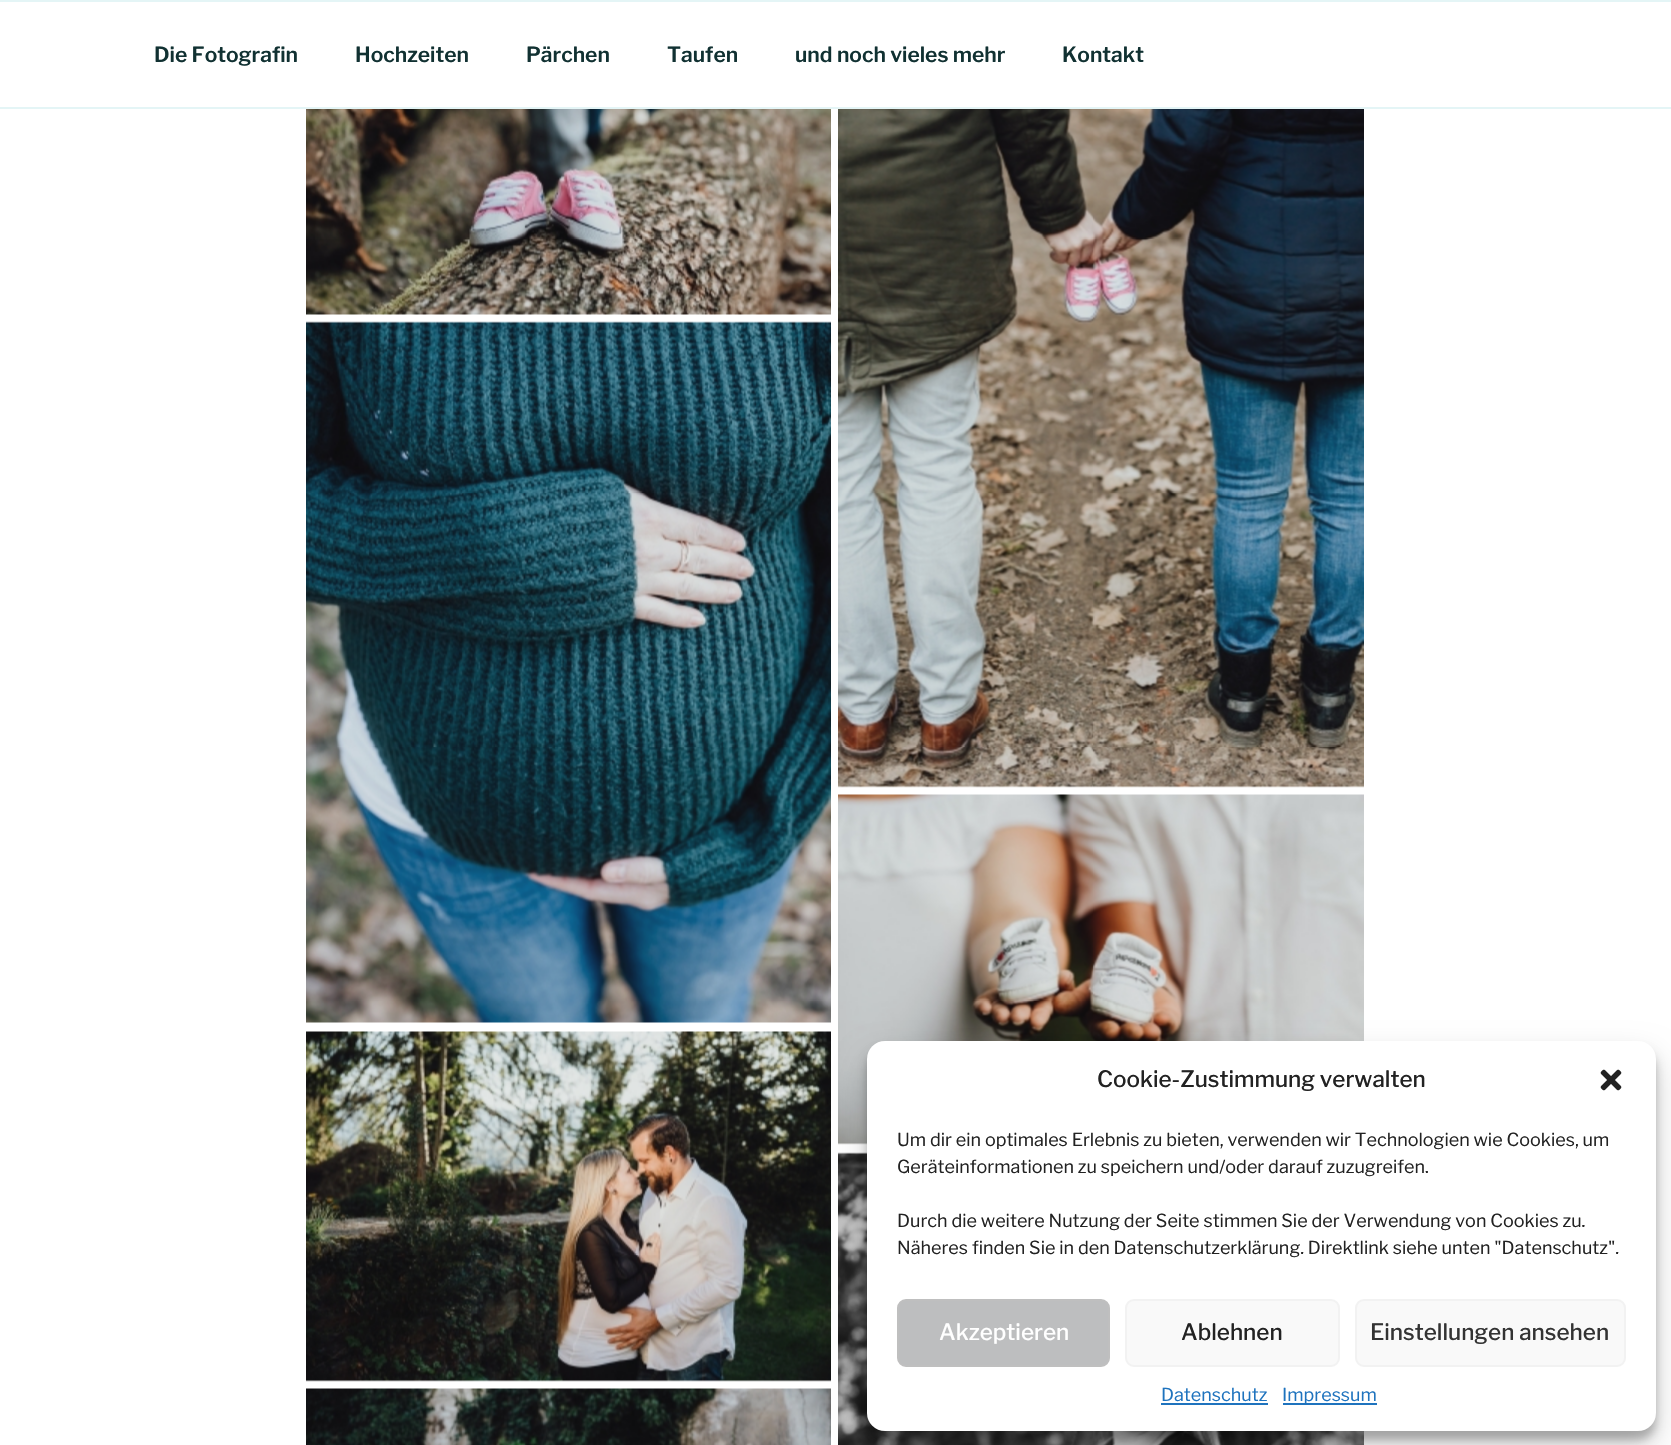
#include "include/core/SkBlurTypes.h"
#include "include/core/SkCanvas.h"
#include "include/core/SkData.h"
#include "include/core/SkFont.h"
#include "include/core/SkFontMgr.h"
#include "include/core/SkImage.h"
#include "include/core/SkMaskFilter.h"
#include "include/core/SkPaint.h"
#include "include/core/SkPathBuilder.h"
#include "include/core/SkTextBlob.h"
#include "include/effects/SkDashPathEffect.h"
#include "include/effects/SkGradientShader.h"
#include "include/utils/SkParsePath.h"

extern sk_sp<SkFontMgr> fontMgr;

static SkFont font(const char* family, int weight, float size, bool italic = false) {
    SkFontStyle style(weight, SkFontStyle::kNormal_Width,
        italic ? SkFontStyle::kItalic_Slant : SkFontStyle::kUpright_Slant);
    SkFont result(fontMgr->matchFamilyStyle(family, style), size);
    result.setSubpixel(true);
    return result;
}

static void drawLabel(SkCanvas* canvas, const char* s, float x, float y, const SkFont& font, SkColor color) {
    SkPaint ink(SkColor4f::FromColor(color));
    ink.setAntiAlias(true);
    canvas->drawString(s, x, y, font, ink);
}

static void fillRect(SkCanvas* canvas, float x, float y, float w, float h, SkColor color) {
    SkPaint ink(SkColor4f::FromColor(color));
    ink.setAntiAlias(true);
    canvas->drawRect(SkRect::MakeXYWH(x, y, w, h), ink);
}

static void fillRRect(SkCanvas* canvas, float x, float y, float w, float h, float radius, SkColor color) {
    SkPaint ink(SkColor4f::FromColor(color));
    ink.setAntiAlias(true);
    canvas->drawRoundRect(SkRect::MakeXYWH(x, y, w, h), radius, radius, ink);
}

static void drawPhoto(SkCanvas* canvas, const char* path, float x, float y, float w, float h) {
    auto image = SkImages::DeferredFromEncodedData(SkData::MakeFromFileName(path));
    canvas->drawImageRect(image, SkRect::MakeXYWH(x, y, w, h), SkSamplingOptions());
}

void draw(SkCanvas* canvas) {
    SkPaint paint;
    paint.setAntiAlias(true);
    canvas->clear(0xFFFFFFFF);
    fillRect(canvas, 0, 0, 1671, 2, 0xFFE4F5F6);
    fillRect(canvas, 0, 107, 1671, 2, 0xFFE4F5F6);
    SkFont font1 = font("Libre Franklin", 600, 21);
    drawLabel(canvas, "Die Fotografin", 154, 62, font1, 0xFF113132);
    drawLabel(canvas, "Hochzeiten", 355, 62, font1, 0xFF113132);
    drawLabel(canvas, "Pärchen", 526, 62, font1, 0xFF113132);
    drawLabel(canvas, "Taufen", 667, 62, font1, 0xFF113132);
    drawLabel(canvas, "und noch vieles mehr", 795, 62, font1, 0xFF113132);
    drawLabel(canvas, "Kontakt", 1062, 62, font1, 0xFF113132);
    drawPhoto(canvas, "assets/img1.png", 306, 109, 525, 206);
    drawPhoto(canvas, "assets/img2.png", 838, 109, 526, 679);
    drawPhoto(canvas, "assets/img3.png", 306, 321, 525, 702);
    drawPhoto(canvas, "assets/img4.png", 838, 794, 526, 351);
    drawPhoto(canvas, "assets/img5.png", 306, 1031, 525, 351);
    drawPhoto(canvas, "assets/img6.png", 838, 1152, 526, 293);
    drawPhoto(canvas, "assets/img7.png", 306, 1388, 525, 57);
    paint.setColor(0x3B000000);
    paint.setMaskFilter(SkMaskFilter::MakeBlur(kNormal_SkBlurStyle, 4.5f));
    canvas->drawRoundRect(SkRect::MakeXYWH(867, 1050, 789, 390), 18, 18, paint);
    paint.setMaskFilter(nullptr);
    paint.setColor(0x30000000);
    paint.setMaskFilter(SkMaskFilter::MakeBlur(kNormal_SkBlurStyle, 15));
    canvas->drawRoundRect(SkRect::MakeXYWH(867, 1056, 789, 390), 18, 18, paint);
    paint.setMaskFilter(nullptr);
    fillRRect(canvas, 867, 1041, 789, 390, 18, 0xFFFFFFFF);
    SkFont font2 = font("Libre Franklin", 500, 22.5f);
    drawLabel(canvas, "Cookie-Zustimmung verwalten", 1097, 1087, font2, 0xFF222222);
    drawPhoto(canvas, "assets/img8.png", 1600, 1069, 22, 22);
    SkFont font3 = font("Libre Franklin", 400, 18);
    drawLabel(canvas, "Um dir ein optimales Erlebnis zu bieten, verwenden wir Technologien wie Cookies, um", 897, 1146, font3, 0xFF222222);
    drawLabel(canvas, "Geräteinformationen zu speichern und/oder darauf zuzugreifen.", 897, 1173, font3, 0xFF222222);
    drawLabel(canvas, "Durch die weitere Nutzung der Seite stimmen Sie der Verwendung von Cookies zu.", 897, 1227, font3, 0xFF222222);
    drawLabel(canvas, "Näheres finden Sie in den Datenschutzerklärung. Direktlink siehe unten \"Datenschutz\".", 897, 1254, font3, 0xFF222222);
    paint.setColor(0xFFBDBEBF);
    canvas->drawRoundRect(SkRect::MakeXYWH(898, 1300, 211, 66), 8, 8, paint);
    paint.setStroke(true);
    paint.setStrokeWidth(2);
    paint.setColor(0xFFBFBFBF);
    canvas->drawRoundRect(SkRect::MakeXYWH(898, 1300, 211, 66), 8, 8, paint);
    drawLabel(canvas, "Akzeptieren", 939, 1340, font2, 0xFFFFFFFF);
    paint.setStroke(false);
    paint.setColor(0xFFF9F9F9);
    canvas->drawRoundRect(SkRect::MakeXYWH(1126, 1300, 213, 66), 8, 8, paint);
    paint.setStroke(true);
    paint.setColor(0xFFF2F2F2);
    canvas->drawRoundRect(SkRect::MakeXYWH(1126, 1300, 213, 66), 8, 8, paint);
    drawLabel(canvas, "Ablehnen", 1181, 1340, font2, 0xFF222222);
    paint.setStroke(false);
    paint.setColor(0xFFF9F9F9);
    canvas->drawRoundRect(SkRect::MakeXYWH(1356, 1300, 269, 66), 8, 8, paint);
    paint.setStroke(true);
    paint.setColor(0xFFF2F2F2);
    canvas->drawRoundRect(SkRect::MakeXYWH(1356, 1300, 269, 66), 8, 8, paint);
    drawLabel(canvas, "Einstellungen ansehen", 1370, 1340, font2, 0xFF333333);
    drawLabel(canvas, "Datenschutz", 1161, 1401, font3, 0xFF1E73BE);
    fillRect(canvas, 1161, 1403, 107, 2, 0xFF1E73BE);
    fillRect(canvas, 1283, 1403, 94, 2, 0xFF1E73BE);
    drawLabel(canvas, "Impressum", 1282, 1401, font3, 0xFF1E73BE);
}
